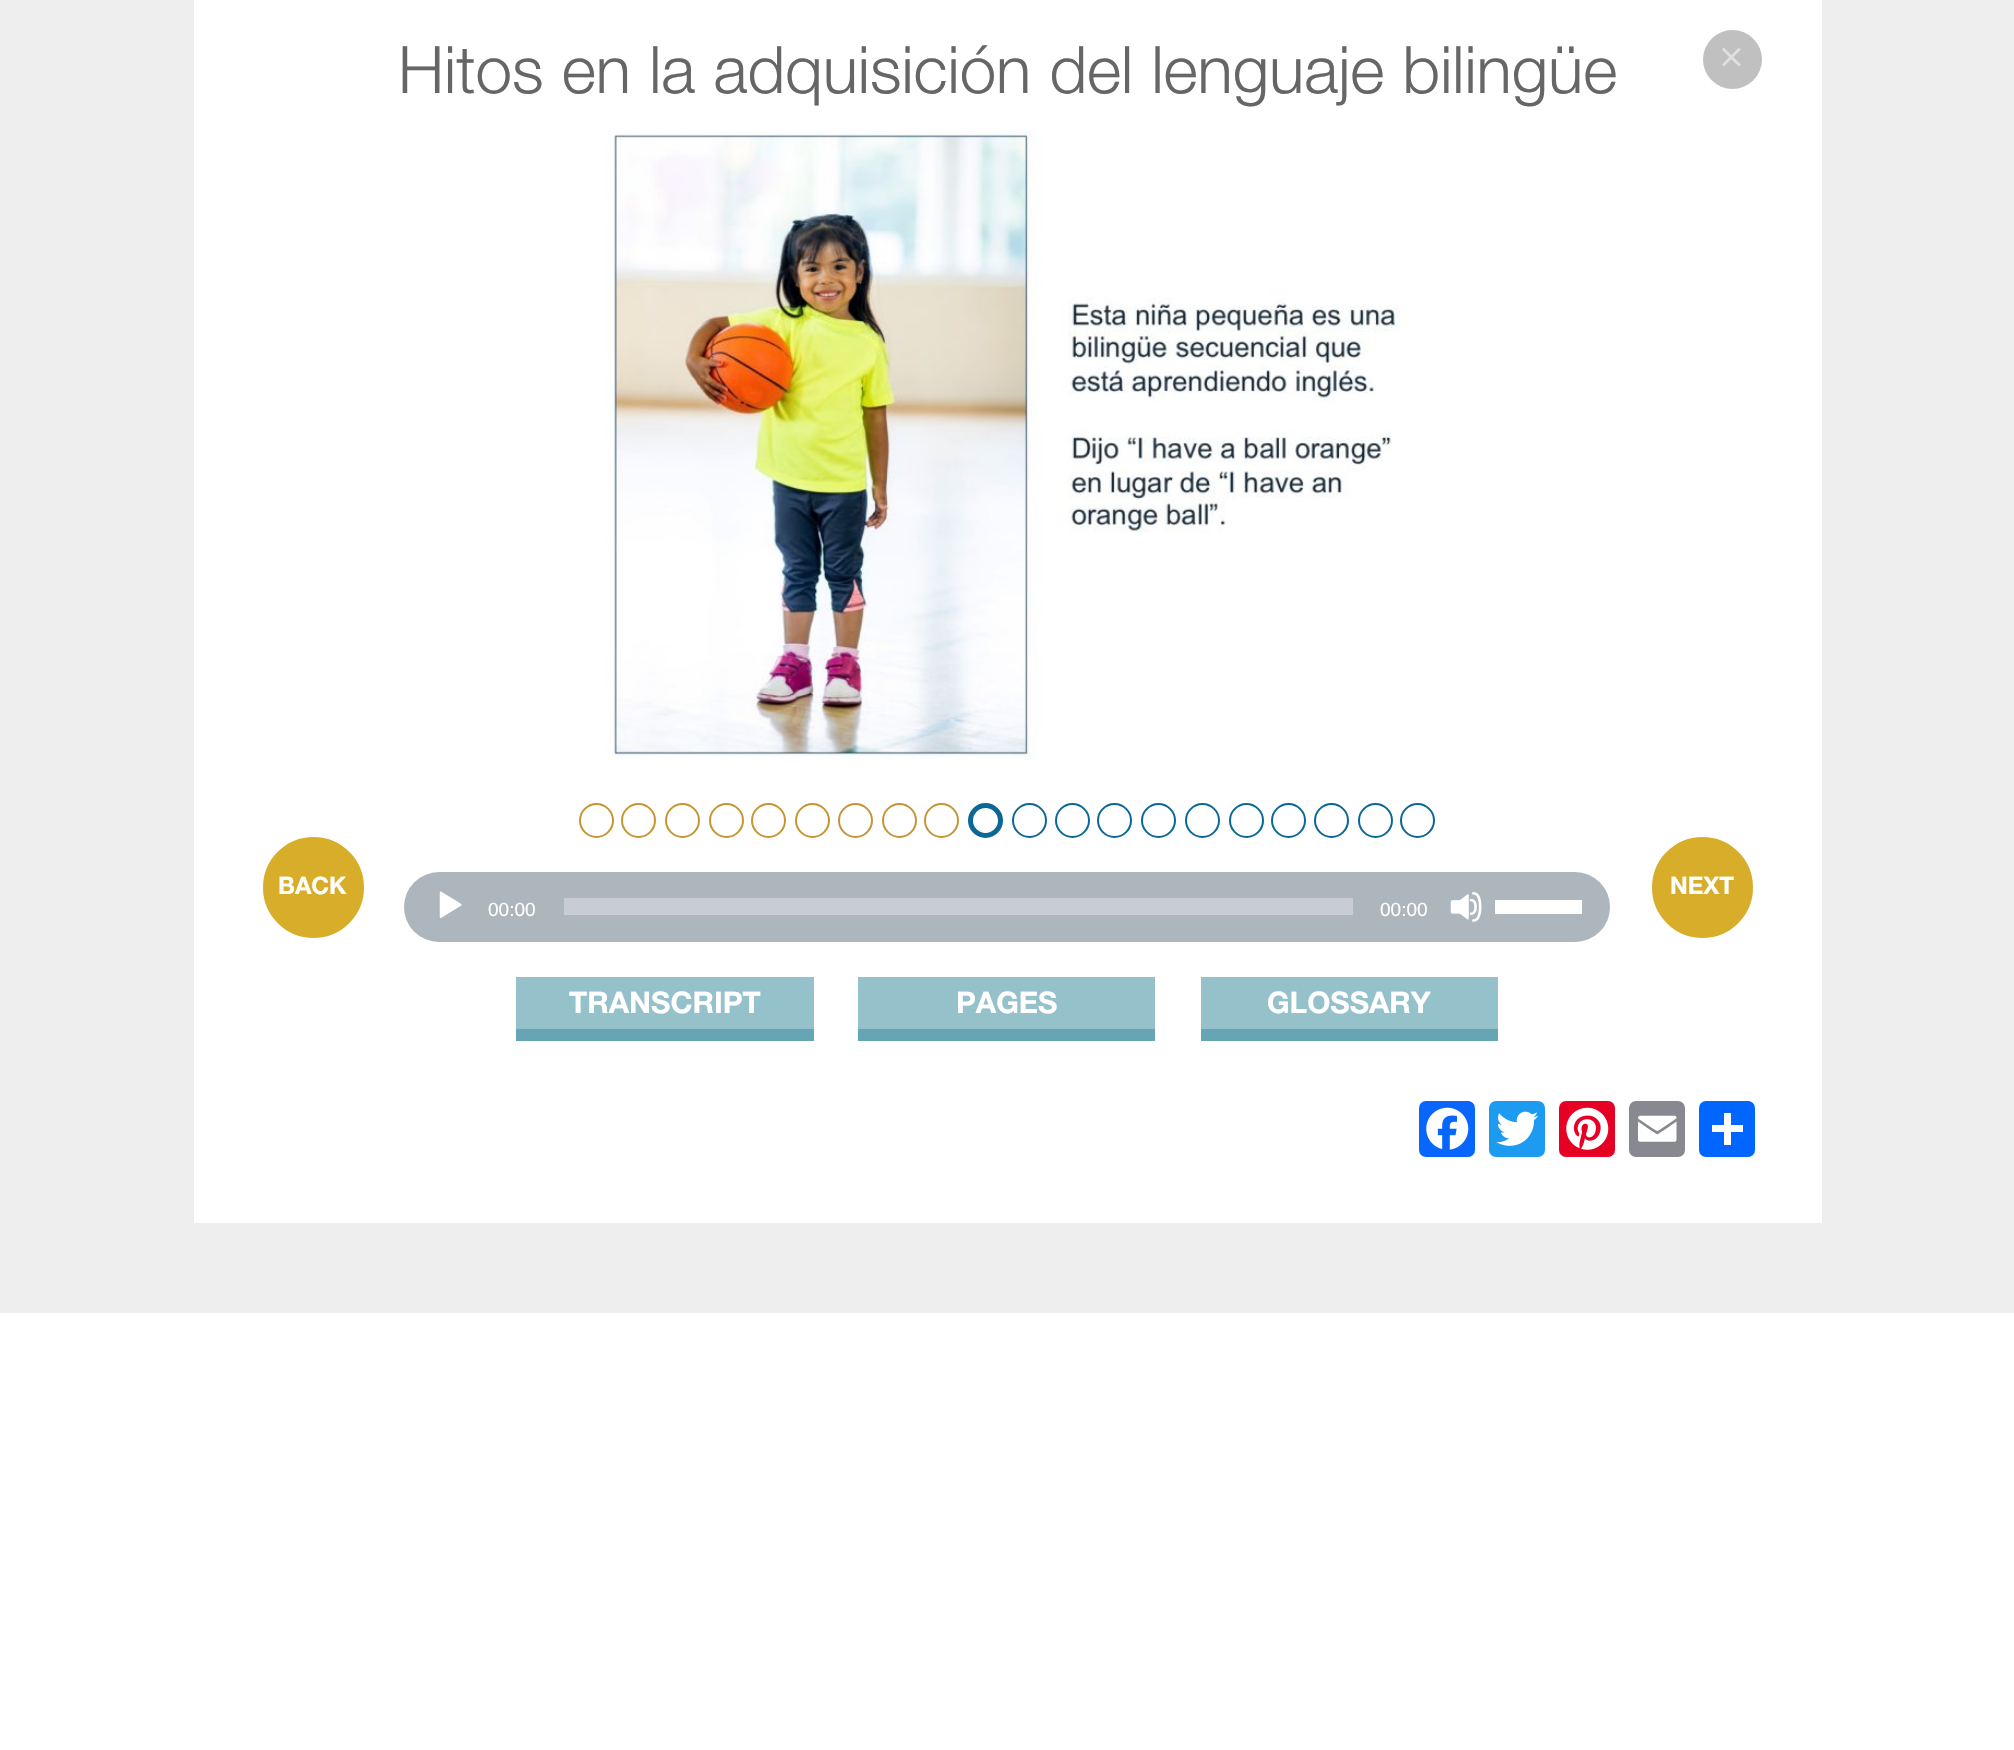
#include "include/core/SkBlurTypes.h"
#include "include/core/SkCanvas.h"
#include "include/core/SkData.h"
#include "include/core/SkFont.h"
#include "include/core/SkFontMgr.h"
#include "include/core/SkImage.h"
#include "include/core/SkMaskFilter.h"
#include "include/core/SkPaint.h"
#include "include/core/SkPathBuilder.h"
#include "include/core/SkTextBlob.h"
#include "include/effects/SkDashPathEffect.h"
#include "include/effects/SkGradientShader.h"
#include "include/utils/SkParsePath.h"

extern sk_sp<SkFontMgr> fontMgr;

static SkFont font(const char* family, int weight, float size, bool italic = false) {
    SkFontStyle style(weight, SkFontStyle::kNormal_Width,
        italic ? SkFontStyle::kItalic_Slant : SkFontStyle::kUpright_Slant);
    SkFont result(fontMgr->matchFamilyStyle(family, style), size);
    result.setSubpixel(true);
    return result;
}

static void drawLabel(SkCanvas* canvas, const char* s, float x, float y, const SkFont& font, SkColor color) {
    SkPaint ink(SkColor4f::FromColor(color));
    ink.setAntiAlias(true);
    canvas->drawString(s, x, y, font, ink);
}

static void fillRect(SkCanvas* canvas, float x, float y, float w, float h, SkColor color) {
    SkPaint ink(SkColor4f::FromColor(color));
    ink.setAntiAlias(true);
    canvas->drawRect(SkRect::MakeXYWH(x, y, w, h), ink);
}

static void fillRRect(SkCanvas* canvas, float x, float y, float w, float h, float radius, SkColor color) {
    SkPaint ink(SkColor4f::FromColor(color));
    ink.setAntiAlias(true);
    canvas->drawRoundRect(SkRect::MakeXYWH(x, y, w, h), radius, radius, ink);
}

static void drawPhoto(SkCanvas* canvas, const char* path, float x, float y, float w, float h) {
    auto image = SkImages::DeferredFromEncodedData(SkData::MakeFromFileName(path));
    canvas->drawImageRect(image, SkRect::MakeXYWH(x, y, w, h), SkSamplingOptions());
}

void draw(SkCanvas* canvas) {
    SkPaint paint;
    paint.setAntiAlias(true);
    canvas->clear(0xFFFFFFFF);
    fillRect(canvas, 0, 0, 2014, 1313, 0xFFEEEEEE);
    fillRect(canvas, 194, 0, 1628, 1223, 0xFFFFFFFF);
    SkFont font1 = font("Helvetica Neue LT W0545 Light", 300, 65.5f);
    drawLabel(canvas, "Hitos en la adquisición del lenguaje bilingüe", 398, 93, font1, 0xFF666666);
    paint.setColor(0xFFC0C0C0);
    canvas->drawCircle(1732.5f, 59.5f, 29.5f, paint);
    drawPhoto(canvas, "assets/img1.png", 1722, 48, 19, 19);
    drawPhoto(canvas, "assets/img2.png", 606, 131, 797, 629);
    paint.setColor(0xFFD7AD29);
    canvas->drawCircle(313.5f, 887.5f, 55, paint);
    paint.setStroke(true);
    paint.setStrokeWidth(9);
    paint.setColor(0xFFFFFFFF);
    canvas->drawCircle(313.5f, 887.5f, 55, paint);
    SkFont font2 = font("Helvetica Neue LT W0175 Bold", 700, 24);
    drawLabel(canvas, "BACK", 278, 894, font2, 0xFFFFFFFF);
    paint.setStroke(false);
    paint.setColor(0xFFD7AD29);
    canvas->drawCircle(1702.5f, 887.5f, 55, paint);
    paint.setStroke(true);
    paint.setColor(0xFFFFFFFF);
    canvas->drawCircle(1702.5f, 887.5f, 55, paint);
    drawLabel(canvas, "NEXT", 1670, 894, font2, 0xFFFFFFFF);
    paint.setStrokeWidth(2);
    paint.setColor(0xFFC59535);
    canvas->drawCircle(596.5f, 820.5f, 16.5f, paint);
    canvas->drawCircle(638.5f, 820.5f, 16.5f, paint);
    canvas->drawCircle(682.5f, 820.5f, 16.5f, paint);
    canvas->drawCircle(726.5f, 820.5f, 16.5f, paint);
    canvas->drawCircle(768.5f, 820.5f, 16.5f, paint);
    canvas->drawCircle(812.5f, 820.5f, 16.5f, paint);
    canvas->drawCircle(855.5f, 820.5f, 16.5f, paint);
    canvas->drawCircle(899.5f, 820.5f, 16.5f, paint);
    canvas->drawCircle(941.5f, 820.5f, 16.5f, paint);
    paint.setStrokeWidth(5);
    paint.setColor(0xFF0B6795);
    canvas->drawCircle(985.5f, 820.5f, 15, paint);
    paint.setStrokeWidth(2);
    canvas->drawCircle(1029.5f, 820.5f, 16.5f, paint);
    canvas->drawCircle(1072.5f, 820.5f, 16.5f, paint);
    canvas->drawCircle(1114.5f, 820.5f, 16.5f, paint);
    canvas->drawCircle(1158.5f, 820.5f, 16.5f, paint);
    canvas->drawCircle(1202.5f, 820.5f, 16.5f, paint);
    canvas->drawCircle(1246.5f, 820.5f, 16.5f, paint);
    canvas->drawCircle(1288.5f, 820.5f, 16.5f, paint);
    canvas->drawCircle(1331.5f, 820.5f, 16.5f, paint);
    canvas->drawCircle(1375.5f, 820.5f, 16.5f, paint);
    canvas->drawCircle(1417.5f, 820.5f, 16.5f, paint);
    fillRRect(canvas, 404, 872, 1206, 70, 35, 0xFFADB5BD);
    drawPhoto(canvas, "assets/img3.png", 439, 891, 23, 27);
    SkFont font3 = font("Liberation Sans", 400, 19);
    drawLabel(canvas, "00:00", 488, 916, font3, 0xFFFFFFFF);
    fillRect(canvas, 564, 898, 789, 17, 0xFFC8CDD3);
    drawLabel(canvas, "00:00", 1380, 916, font3, 0xFFFFFFFF);
    drawPhoto(canvas, "assets/img4.png", 1450, 892, 32, 30);
    fillRect(canvas, 1495, 900, 87, 14, 0xFFFFFFFF);
    fillRect(canvas, 516, 977, 298, 52, 0xFF95C1CA);
    fillRect(canvas, 516, 1029, 298, 12, 0xFF66A5B3);
    SkFont font4 = font("Helvetica Neue LT W0175 Bold", 700, 29.75f);
    drawLabel(canvas, "TRANSCRIPT", 569, 1013, font4, 0xFFFFFFFF);
    fillRect(canvas, 858, 977, 297, 52, 0xFF95C1CA);
    fillRect(canvas, 858, 1029, 297, 12, 0xFF66A5B3);
    drawLabel(canvas, "PAGES", 956, 1013, font4, 0xFFFFFFFF);
    fillRect(canvas, 1201, 977, 297, 52, 0xFF95C1CA);
    fillRect(canvas, 1201, 1029, 297, 12, 0xFF66A5B3);
    drawLabel(canvas, "GLOSSARY", 1267, 1013, font4, 0xFFFFFFFF);
    fillRRect(canvas, 1419, 1101, 56, 56, 7, 0xFF0866FF);
    drawPhoto(canvas, "assets/img5.png", 1426, 1107, 43, 43);
    fillRRect(canvas, 1489, 1101, 56, 56, 7, 0xFF1D9BF0);
    drawPhoto(canvas, "assets/img6.png", 1496, 1111, 43, 35);
    fillRRect(canvas, 1559, 1101, 56, 56, 7, 0xFFE60023);
    drawPhoto(canvas, "assets/img7.png", 1566, 1107, 43, 43);
    fillRRect(canvas, 1629, 1101, 56, 56, 7, 0xFF888990);
    drawPhoto(canvas, "assets/img8.png", 1638, 1115, 39, 27);
    fillRRect(canvas, 1699, 1101, 56, 56, 7, 0xFF0166FF);
    fillRect(canvas, 1724, 1113, 7, 32, 0xFFFFFFFF);
    fillRect(canvas, 1712, 1125, 31, 7, 0xFFFFFFFF);
}
